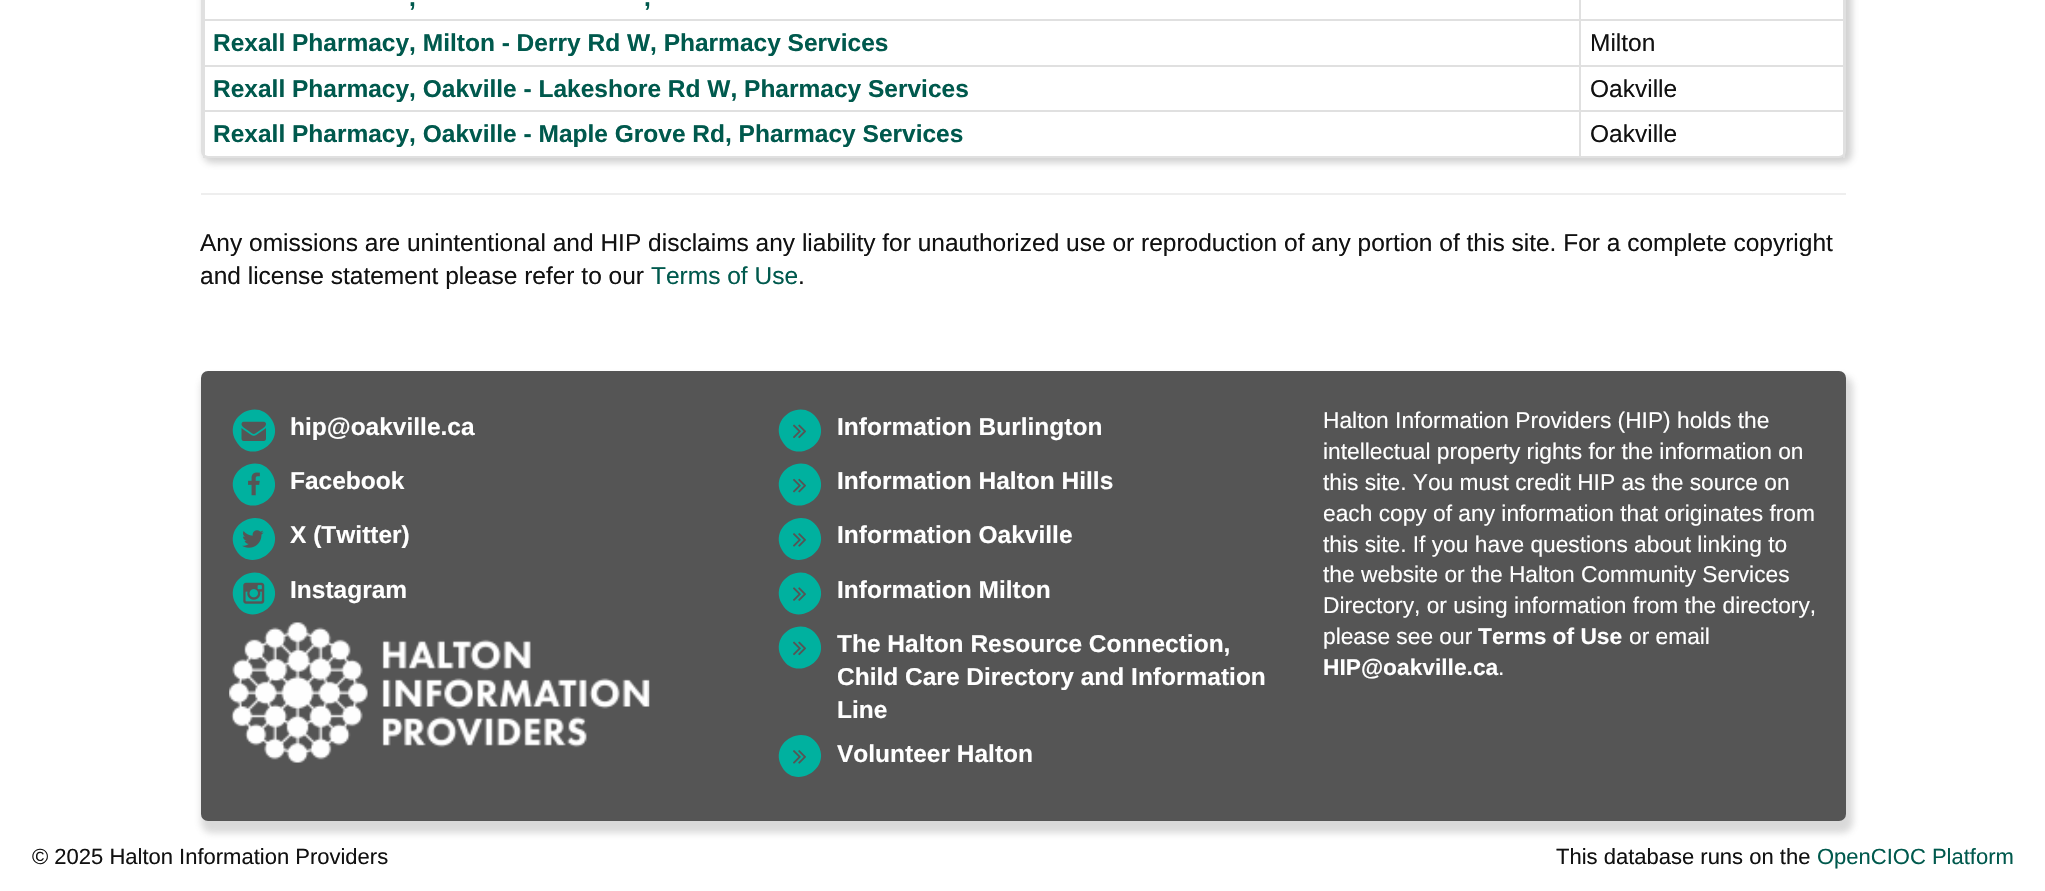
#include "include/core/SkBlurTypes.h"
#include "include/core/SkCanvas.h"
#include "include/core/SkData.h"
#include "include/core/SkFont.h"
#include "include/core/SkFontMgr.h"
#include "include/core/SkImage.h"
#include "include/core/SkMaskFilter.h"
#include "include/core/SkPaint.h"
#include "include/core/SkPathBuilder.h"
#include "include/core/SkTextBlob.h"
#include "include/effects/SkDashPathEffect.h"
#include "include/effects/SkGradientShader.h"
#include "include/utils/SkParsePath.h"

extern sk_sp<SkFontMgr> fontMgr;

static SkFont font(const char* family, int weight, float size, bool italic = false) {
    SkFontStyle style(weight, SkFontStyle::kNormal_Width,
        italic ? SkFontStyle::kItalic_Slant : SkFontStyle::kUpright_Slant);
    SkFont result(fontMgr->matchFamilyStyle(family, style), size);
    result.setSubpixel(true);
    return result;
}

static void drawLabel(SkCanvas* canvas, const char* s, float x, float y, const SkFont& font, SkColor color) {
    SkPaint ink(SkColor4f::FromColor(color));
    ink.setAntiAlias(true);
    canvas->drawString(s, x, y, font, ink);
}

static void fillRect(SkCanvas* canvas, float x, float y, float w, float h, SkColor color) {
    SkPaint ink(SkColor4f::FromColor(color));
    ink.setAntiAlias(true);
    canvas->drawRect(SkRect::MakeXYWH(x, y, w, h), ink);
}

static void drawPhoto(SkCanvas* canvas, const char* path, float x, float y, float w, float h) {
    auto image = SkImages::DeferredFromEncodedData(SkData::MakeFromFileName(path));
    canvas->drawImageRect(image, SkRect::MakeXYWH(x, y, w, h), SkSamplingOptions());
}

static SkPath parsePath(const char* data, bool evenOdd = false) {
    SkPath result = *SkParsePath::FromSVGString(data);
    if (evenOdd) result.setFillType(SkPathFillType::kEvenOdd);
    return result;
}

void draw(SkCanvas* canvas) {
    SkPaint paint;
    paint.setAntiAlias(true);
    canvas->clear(0xFFFFFFFF);
    paint.setColor(0x4D666666);
    paint.setMaskFilter(SkMaskFilter::MakeBlur(kNormal_SkBlurStyle, 3.5f));
    canvas->drawRoundRect(SkRect::MakeXYWH(203, -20, 1649, 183), 9, 9, paint);
    paint.setMaskFilter(nullptr);
    paint.setColor(0xFFFFFFFF);
    canvas->drawRoundRect(SkRect::MakeXYWH(202, -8, 1643, 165), 6, 6, paint);
    paint.setStroke(true);
    paint.setStrokeWidth(2);
    paint.setColor(0xFFE0E0E0);
    canvas->drawRoundRect(SkRect::MakeXYWH(202, -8, 1643, 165), 6, 6, paint);
    SkFont font1 = font("Liberation Sans", 700, 24.5f);
    drawLabel(canvas, ",", 409, 6, font1, 0xFF00594D);
    drawLabel(canvas, ",", 644, 6, font1, 0xFF00594D);
    fillRect(canvas, 1579, 19, 266, 2, 0xFFE0E0E0);
    fillRect(canvas, 1579, 65, 266, 2, 0xFFE0E0E0);
    fillRect(canvas, 1579, 110, 266, 2, 0xFFE0E0E0);
    fillRect(canvas, 1579, 110, 2, 48, 0xFFE0E0E0);
    fillRect(canvas, 203, 110, 1377, 2, 0xFFE0E0E0);
    fillRect(canvas, 1579, 65, 2, 47, 0xFFE0E0E0);
    fillRect(canvas, 203, 65, 1377, 2, 0xFFE0E0E0);
    fillRect(canvas, 1579, 19, 2, 48, 0xFFE0E0E0);
    fillRect(canvas, 203, 19, 1377, 2, 0xFFE0E0E0);
    fillRect(canvas, 1579, 0, 2, 21, 0xFFE0E0E0);
    fillRect(canvas, 203, 110, 2, 48, 0xFFE0E0E0);
    fillRect(canvas, 203, 65, 2, 47, 0xFFE0E0E0);
    fillRect(canvas, 203, 0, 2, 67, 0xFFE0E0E0);
    drawLabel(canvas, "Rexall Pharmacy, Milton - Derry Rd W, Pharmacy Services", 213, 51, font1, 0xFF00594D);
    fillRect(canvas, 1843, 110, 2, 48, 0xFFE0E0E0);
    fillRect(canvas, 1843, 65, 1, 47, 0xFFE0E0E0);
    fillRect(canvas, 1843, 0, 1, 67, 0xFFE0E0E0);
    SkFont font2 = font("Liberation Sans", 400, 24.5f);
    drawLabel(canvas, "Milton", 1590, 51, font2, 0xFF111111);
    drawLabel(canvas, "Rexall Pharmacy, Oakville - Lakeshore Rd W, Pharmacy Services", 213, 97, font1, 0xFF00594D);
    drawLabel(canvas, "Oakville", 1590, 97, font2, 0xFF111111);
    drawLabel(canvas, "Rexall Pharmacy, Oakville - Maple Grove Rd, Pharmacy Services", 213, 142, font1, 0xFF00594D);
    drawLabel(canvas, "Oakville", 1590, 142, font2, 0xFF111111);
    fillRect(canvas, 201, 193, 1645, 2, 0xFFEEEEEE);
    drawLabel(canvas, "Any omissions are unintentional and HIP disclaims any liability for unauthorized use or reproduction of any portion of this site. For a complete copyright", 200, 251, font2, 0xFF111111);
    drawLabel(canvas, "and license statement please refer to our", 200, 284, font2, 0xFF111111);
    drawLabel(canvas, "Terms of Use", 651, 284, font2, 0xFF00594D);
    drawLabel(canvas, ".", 798, 284, font2, 0xFF111111);
    paint.setStroke(false);
    paint.setColor(0x40666666);
    paint.setMaskFilter(SkMaskFilter::MakeBlur(kNormal_SkBlurStyle, 3.5f));
    canvas->drawRoundRect(SkRect::MakeXYWH(201, 376, 1652, 457), 11, 11, paint);
    paint.setMaskFilter(nullptr);
    paint.setColor(0xFF555555);
    canvas->drawRoundRect(SkRect::MakeXYWH(202, 372, 1643, 448), 6, 6, paint);
    paint.setStroke(true);
    canvas->drawRoundRect(SkRect::MakeXYWH(202, 372, 1643, 448), 6, 6, paint);
    paint.setStroke(false);
    paint.setColor(0xFF00B19F);
    canvas->drawPath(parsePath("M272 420C286 444 249 465 236 441C222 417 258 396 272 420Z"), paint);
    drawPhoto(canvas, "assets/img1.png", 241, 421, 25, 20);
    drawLabel(canvas, "hip@oakville.ca", 290, 435, font1, 0xFFFFFFFF);
    canvas->drawPath(parsePath("M272 474C286 498 249 519 236 495C222 472 258 450 272 474Z"), paint);
    drawPhoto(canvas, "assets/img2.png", 248, 472, 12, 24);
    drawLabel(canvas, "Facebook", 290, 489, font1, 0xFFFFFFFF);
    canvas->drawPath(parsePath("M272 528C286 552 249 573 236 550C222 526 258 505 272 528Z"), paint);
    drawPhoto(canvas, "assets/img3.png", 242, 530, 22, 18);
    drawLabel(canvas, "X (Twitter)", 290, 543, font1, 0xFFFFFFFF);
    canvas->drawPath(parsePath("M272 583C286 606 249 628 236 604C222 580 258 559 272 583Z"), paint);
    drawPhoto(canvas, "assets/img4.png", 243, 582, 22, 22);
    drawLabel(canvas, "Instagram", 290, 598, font1, 0xFFFFFFFF);
    drawPhoto(canvas, "assets/img5.png", 229, 622, 421, 141);
    canvas->drawPath(parsePath("M818 420C832 444 795 465 782 441C768 417 804 396 818 420Z"), paint);
    drawPhoto(canvas, "assets/img6.png", 793, 424, 13, 15);
    drawLabel(canvas, "Information Burlington", 837, 435, font1, 0xFFFFFFFF);
    canvas->drawPath(parsePath("M818 474C832 498 795 519 782 495C768 472 804 450 818 474Z"), paint);
    drawPhoto(canvas, "assets/img7.png", 793, 478, 13, 15);
    drawLabel(canvas, "Information Halton Hills", 837, 489, font1, 0xFFFFFFFF);
    canvas->drawPath(parsePath("M818 528C832 552 795 573 782 550C768 526 804 505 818 528Z"), paint);
    drawPhoto(canvas, "assets/img8.png", 793, 533, 13, 14);
    drawLabel(canvas, "Information Oakville", 837, 543, font1, 0xFFFFFFFF);
    canvas->drawPath(parsePath("M818 583C832 606 795 628 782 604C768 580 804 559 818 583Z"), paint);
    drawPhoto(canvas, "assets/img9.png", 793, 587, 13, 14);
    drawLabel(canvas, "Information Milton", 837, 598, font1, 0xFFFFFFFF);
    canvas->drawPath(parsePath("M818 637C832 661 795 682 782 658C768 634 804 613 818 637Z"), paint);
    drawPhoto(canvas, "assets/img6.png", 793, 641, 13, 15);
    drawLabel(canvas, "The Halton Resource Connection,", 837, 652, font1, 0xFFFFFFFF);
    drawLabel(canvas, "Child Care Directory and Information", 837, 685, font1, 0xFFFFFFFF);
    drawLabel(canvas, "Line", 837, 718, font1, 0xFFFFFFFF);
    canvas->drawPath(parsePath("M818 745C832 769 795 790 782 767C768 743 804 722 818 745Z"), paint);
    drawPhoto(canvas, "assets/img8.png", 793, 750, 13, 14);
    drawLabel(canvas, "Volunteer Halton", 837, 762, font1, 0xFFFFFFFF);
    SkFont font3 = font("Liberation Sans", 400, 22.75f);
    drawLabel(canvas, "Halton Information Providers (HIP) holds the", 1323, 428, font3, 0xFFFFFFFF);
    drawLabel(canvas, "intellectual property rights for the information on", 1323, 459, font3, 0xFFFFFFFF);
    drawLabel(canvas, "this site. You must credit HIP as the source on", 1323, 490, font3, 0xFFFFFFFF);
    drawLabel(canvas, "each copy of any information that originates from", 1323, 521, font3, 0xFFFFFFFF);
    drawLabel(canvas, "this site. If you have questions about linking to", 1323, 552, font3, 0xFFFFFFFF);
    drawLabel(canvas, "the website or the Halton Community Services", 1323, 582, font3, 0xFFFFFFFF);
    drawLabel(canvas, "Directory, or using information from the directory,", 1323, 613, font3, 0xFFFFFFFF);
    drawLabel(canvas, "please see our", 1323, 644, font3, 0xFFFFFFFF);
    SkFont font4 = font("Liberation Sans", 700, 22.75f);
    drawLabel(canvas, "Terms of Use", 1478, 644, font4, 0xFFFFFFFF);
    drawLabel(canvas, "or email", 1629, 644, font3, 0xFFFFFFFF);
    drawLabel(canvas, "HIP@oakville.ca", 1323, 675, font4, 0xFFFFFFFF);
    drawLabel(canvas, ".", 1498, 675, font3, 0xFFFFFFFF);
    SkFont font5 = font("Liberation Sans", 400, 22);
    drawLabel(canvas, "© 2025 Halton Information Providers", 32, 864, font5, 0xFF111111);
    drawLabel(canvas, "This database runs on the", 1556, 864, font5, 0xFF111111);
    drawLabel(canvas, "OpenCIOC Platform", 1817, 864, font5, 0xFF00594D);
}
